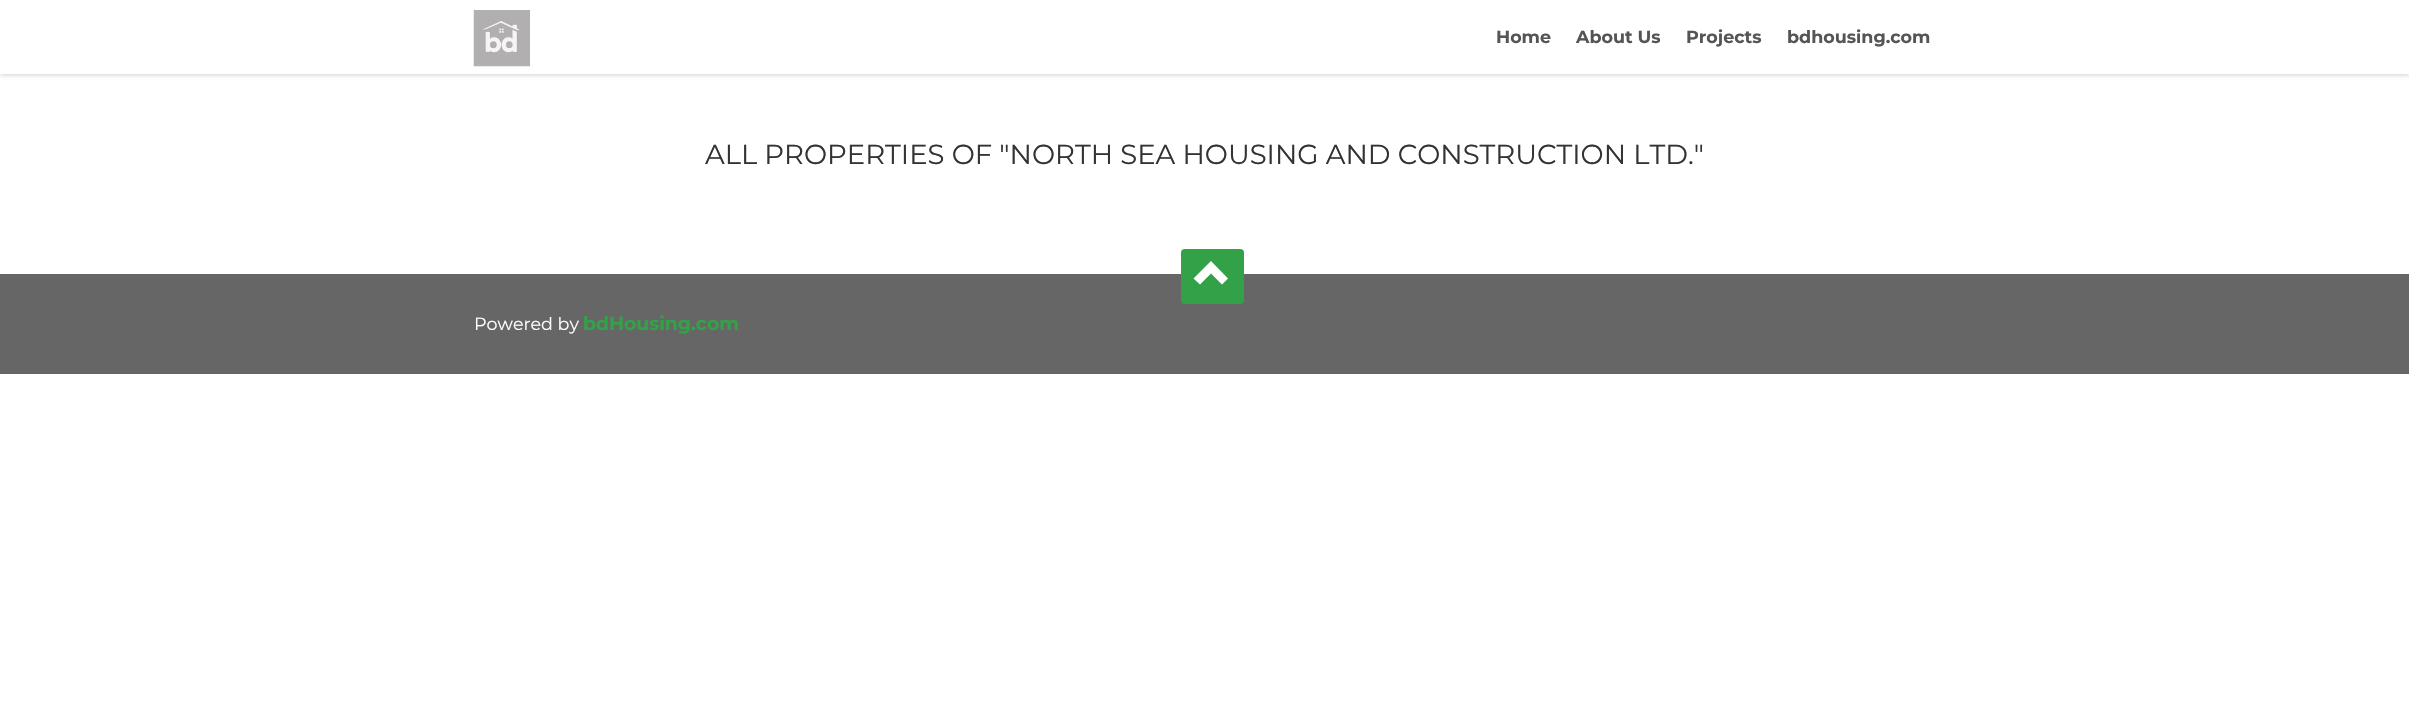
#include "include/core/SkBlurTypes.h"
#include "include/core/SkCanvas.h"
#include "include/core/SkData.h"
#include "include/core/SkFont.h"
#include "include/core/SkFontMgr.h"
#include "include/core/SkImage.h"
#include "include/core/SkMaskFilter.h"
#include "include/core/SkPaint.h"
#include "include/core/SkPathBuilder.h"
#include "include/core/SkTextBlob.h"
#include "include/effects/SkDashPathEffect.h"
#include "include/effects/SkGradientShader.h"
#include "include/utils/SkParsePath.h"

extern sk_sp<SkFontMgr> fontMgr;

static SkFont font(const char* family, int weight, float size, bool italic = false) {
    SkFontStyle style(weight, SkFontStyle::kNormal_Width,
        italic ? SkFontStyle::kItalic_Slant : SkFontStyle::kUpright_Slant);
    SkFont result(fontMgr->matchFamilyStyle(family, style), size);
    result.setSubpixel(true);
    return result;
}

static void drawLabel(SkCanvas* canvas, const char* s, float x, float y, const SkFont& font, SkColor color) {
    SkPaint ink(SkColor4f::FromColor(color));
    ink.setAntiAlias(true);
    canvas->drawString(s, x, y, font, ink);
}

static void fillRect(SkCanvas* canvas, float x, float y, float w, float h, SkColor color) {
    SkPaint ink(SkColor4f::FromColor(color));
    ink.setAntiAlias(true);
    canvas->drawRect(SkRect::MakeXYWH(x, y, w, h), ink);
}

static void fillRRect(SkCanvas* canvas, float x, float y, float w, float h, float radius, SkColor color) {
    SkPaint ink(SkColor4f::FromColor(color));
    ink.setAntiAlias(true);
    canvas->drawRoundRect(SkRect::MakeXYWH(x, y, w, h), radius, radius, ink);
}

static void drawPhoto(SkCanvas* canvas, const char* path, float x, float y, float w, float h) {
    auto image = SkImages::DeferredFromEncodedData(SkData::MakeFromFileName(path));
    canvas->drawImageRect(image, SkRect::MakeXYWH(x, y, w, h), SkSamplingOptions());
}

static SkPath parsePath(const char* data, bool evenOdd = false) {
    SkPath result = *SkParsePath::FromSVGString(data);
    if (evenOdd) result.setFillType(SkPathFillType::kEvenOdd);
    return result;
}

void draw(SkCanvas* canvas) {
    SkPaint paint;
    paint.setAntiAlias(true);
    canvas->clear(0xFFFFFFFF);
    paint.setColor(0x40030303);
    paint.setMaskFilter(SkMaskFilter::MakeBlur(kNormal_SkBlurStyle, 3));
    canvas->drawRect(SkRect::MakeXYWH(0, 0, 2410, 74), paint);
    paint.setMaskFilter(nullptr);
    fillRect(canvas, 0, 0, 2409, 74, 0xFFFFFFFF);
    drawPhoto(canvas, "assets/img1.png", 473, 10, 57, 57);
    SkFont font1 = font("Montserrat", 700, 17.5f);
    drawLabel(canvas, "Home", 1496, 43, font1, 0xFF555555);
    drawLabel(canvas, "About Us", 1576, 43, font1, 0xFF555555);
    drawLabel(canvas, "Projects", 1686, 43, font1, 0xFF555555);
    drawLabel(canvas, "bdhousing.com", 1787, 43, font1, 0xFF555555);
    SkFont font2 = font("Montserrat", 400, 27.5f);
    drawLabel(canvas, "ALL PROPERTIES OF \"NORTH SEA HOUSING AND CONSTRUCTION LTD.\"", 705, 164, font2, 0xFF333333);
    fillRect(canvas, 0, 274, 2409, 100, 0xFF666666);
    fillRRect(canvas, 1181, 249, 63, 55, 4, 0xFF33A148);
    paint.setColor(0xFFFFFFFF);
    canvas->drawPath(parsePath("M1228 278.5L1222 284.5L1211 273.5L1200 284.5L1193.5 278.5L1211 261Z"), paint);
    SkFont font3 = font("Montserrat", 400, 17.5f);
    drawLabel(canvas, "Powered by", 474, 330, font3, 0xFFFFFFFF);
    SkFont font4 = font("Montserrat", 700, 18.75f);
    drawLabel(canvas, "bdHousing.com", 583, 330, font4, 0xFF33A148);
}
